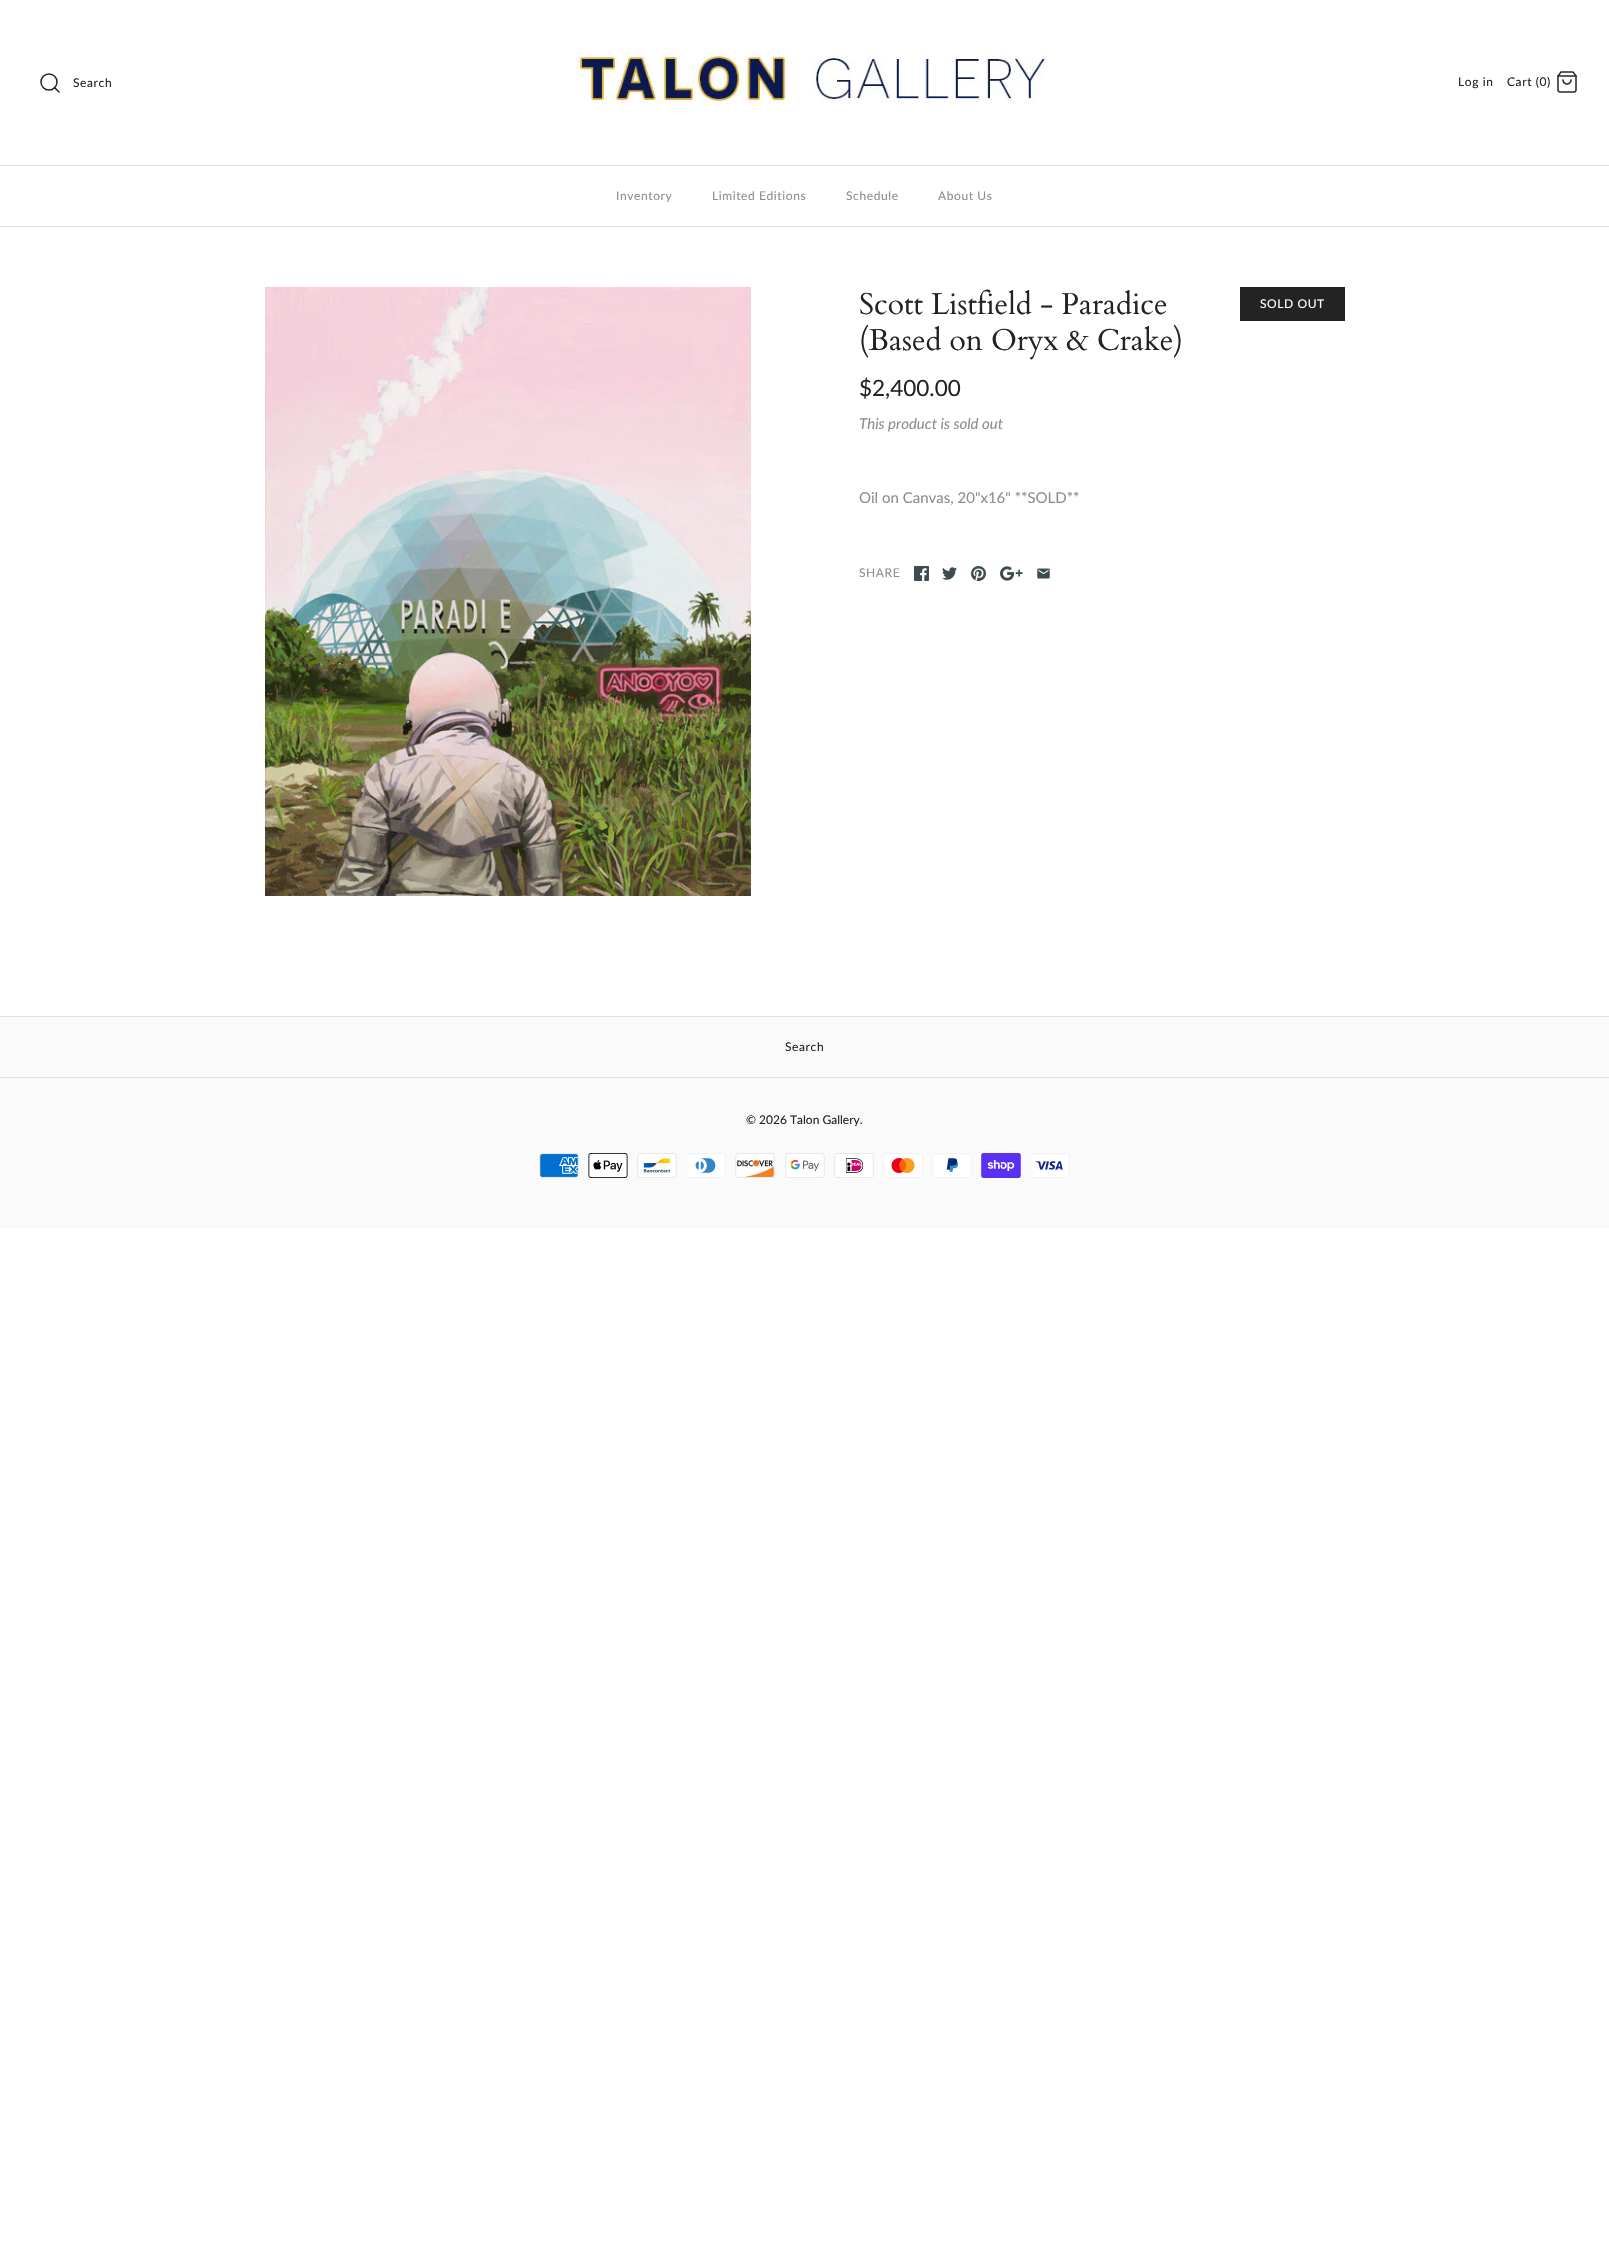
#include "include/core/SkBlurTypes.h"
#include "include/core/SkCanvas.h"
#include "include/core/SkData.h"
#include "include/core/SkFont.h"
#include "include/core/SkFontMgr.h"
#include "include/core/SkImage.h"
#include "include/core/SkMaskFilter.h"
#include "include/core/SkPaint.h"
#include "include/core/SkPathBuilder.h"
#include "include/core/SkTextBlob.h"
#include "include/effects/SkDashPathEffect.h"
#include "include/effects/SkGradientShader.h"
#include "include/utils/SkParsePath.h"

extern sk_sp<SkFontMgr> fontMgr;

static SkFont font(const char* family, int weight, float size, bool italic = false) {
    SkFontStyle style(weight, SkFontStyle::kNormal_Width,
        italic ? SkFontStyle::kItalic_Slant : SkFontStyle::kUpright_Slant);
    SkFont result(fontMgr->matchFamilyStyle(family, style), size);
    result.setSubpixel(true);
    return result;
}

static void drawLabel(SkCanvas* canvas, const char* s, float x, float y, const SkFont& font, SkColor color) {
    SkPaint ink(SkColor4f::FromColor(color));
    ink.setAntiAlias(true);
    canvas->drawString(s, x, y, font, ink);
}

static void drawTracked(SkCanvas* canvas, const char* s, float x, float y, const SkFont& font, const SkPaint& ink, float letter, float word) {
    std::vector<SkGlyphID> glyphs(font.countText(s, strlen(s), SkTextEncoding::kUTF8));
    std::vector<float> xs(glyphs.size());
    font.textToGlyphs(s, strlen(s), SkTextEncoding::kUTF8, glyphs);
    font.getXPos(glyphs, xs, x);
    float extra = 0;
    for (size_t i = 0; i < glyphs.size(); i++) {
        xs[i] += extra;
        extra += letter + word * (glyphs[i] == font.unicharToGlyph(' '));
    }
    canvas->drawTextBlob(SkTextBlob::MakeFromPosHGlyphs(glyphs, xs, y, font), 0, 0, ink);
}

static void fillRect(SkCanvas* canvas, float x, float y, float w, float h, SkColor color) {
    SkPaint ink(SkColor4f::FromColor(color));
    ink.setAntiAlias(true);
    canvas->drawRect(SkRect::MakeXYWH(x, y, w, h), ink);
}

static void drawPhoto(SkCanvas* canvas, const char* path, float x, float y, float w, float h) {
    auto image = SkImages::DeferredFromEncodedData(SkData::MakeFromFileName(path));
    canvas->drawImageRect(image, SkRect::MakeXYWH(x, y, w, h), SkSamplingOptions());
}

static SkPath parsePath(const char* data, bool evenOdd = false) {
    SkPath result = *SkParsePath::FromSVGString(data);
    if (evenOdd) result.setFillType(SkPathFillType::kEvenOdd);
    return result;
}

void draw(SkCanvas* canvas) {
    SkPaint paint;
    paint.setAntiAlias(true);
    canvas->clear(0xFFFFFFFF);
    drawPhoto(canvas, "assets/img1.png", 576, 54, 473, 50);
    paint.setStroke(true);
    paint.setStrokeWidth(1.5f);
    paint.setColor(0xFF232323);
    canvas->drawCircle(49, 82, 8, paint);
    paint.setStrokeCap(SkPaint::kRound_Cap);
    paint.setStrokeJoin(SkPaint::kRound_Join);
    canvas->drawPath(parsePath("M59 92L54.5 87.5"), paint);
    SkFont font1 = font("Lato", 400, 12);
    paint.setStroke(false);
    drawTracked(canvas, "Search", 73, 87, font1, paint, 0.6f, 0);
    drawTracked(canvas, "Log in", 1458, 86, font1, paint, 0.6f, 0);
    drawTracked(canvas, "Cart (0)", 1507, 86, font1, paint, 0.6f, 0);
    drawPhoto(canvas, "assets/img2.png", 1557, 71, 20, 22);
    fillRect(canvas, 0, 226, 1609, 1, 0xFFE2E2E2);
    fillRect(canvas, 0, 165, 1609, 1, 0xFFE2E2E2);
    paint.setColor(0xFF8A8F93);
    drawTracked(canvas, "Inventory", 616, 200, font1, paint, 0.6f, 0);
    drawTracked(canvas, "Limited Editions", 712, 200, font1, paint, 0.6f, 0);
    drawTracked(canvas, "Schedule", 846, 200, font1, paint, 0.6f, 0);
    drawTracked(canvas, "About Us", 938, 200, font1, paint, 0.6f, 0);
    drawPhoto(canvas, "assets/img3.png", 265, 287, 486, 609);
    SkFont font2 = font("Cardo", 400, 30);
    drawLabel(canvas, "Scott Listfield - Paradice", 859, 314, font2, 0xFF232323);
    drawLabel(canvas, "(Based on Oryx & Crake)", 859, 350, font2, 0xFF232323);
    fillRect(canvas, 1240, 287, 105, 34, 0xFF232323);
    paint.setColor(0xFFFFFFFF);
    drawTracked(canvas, "SOLD OUT", 1260, 308, font1, paint, 0.6f, 0);
    SkFont font3 = font("Lato", 400, 22.5f);
    drawLabel(canvas, "$2,400.00", 859, 396, font3, 0xFF232323);
    SkFont font4 = font("Lato", 400, 15, true);
    drawLabel(canvas, "This product is sold out", 859, 429, font4, 0xFF8A8F93);
    SkFont font5 = font("Lato", 400, 15);
    drawLabel(canvas, "Oil on Canvas, 20\"x16\" **SOLD**", 859, 503, font5, 0xFF8A8F93);
    paint.setColor(0xFF8A8F93);
    drawTracked(canvas, "SHARE", 859, 577, font1, paint, 0.6f, 0);
    drawPhoto(canvas, "assets/img4.png", 914, 566, 15, 15);
    drawPhoto(canvas, "assets/img5.png", 942, 567, 15, 13);
    drawPhoto(canvas, "assets/img6.png", 971, 566, 15, 15);
    drawPhoto(canvas, "assets/img7.png", 1000, 566, 23, 15);
    drawPhoto(canvas, "assets/img8.png", 1037, 568, 13, 11);
    fillRect(canvas, 0, 1017, 1609, 211, 0xFFFAFAFA);
    fillRect(canvas, 0, 1016, 1609, 1, 0xFFE2E2E2);
    fillRect(canvas, 0, 1077, 1609, 1, 0xFFE2E2E2);
    paint.setColor(0xFF232323);
    drawTracked(canvas, "Search", 785, 1051, font1, paint, 0.6f, 0);
    drawLabel(canvas, "© 2026 Talon Gallery.", 746, 1124, font1, 0xFF232323);
    drawPhoto(canvas, "assets/img9.png", 539, 1153, 40, 25);
    drawPhoto(canvas, "assets/img10.png", 588, 1153, 40, 25);
    drawPhoto(canvas, "assets/img11.png", 637, 1153, 40, 25);
    drawPhoto(canvas, "assets/img12.png", 686, 1153, 40, 25);
    drawPhoto(canvas, "assets/img13.png", 735, 1153, 40, 25);
    drawPhoto(canvas, "assets/img14.png", 785, 1153, 40, 25);
    drawPhoto(canvas, "assets/img15.png", 834, 1153, 40, 25);
    drawPhoto(canvas, "assets/img16.png", 883, 1153, 40, 25);
    drawPhoto(canvas, "assets/img17.png", 932, 1153, 40, 25);
    drawPhoto(canvas, "assets/img18.png", 981, 1153, 40, 25);
    drawPhoto(canvas, "assets/img19.png", 1030, 1153, 40, 25);
}
